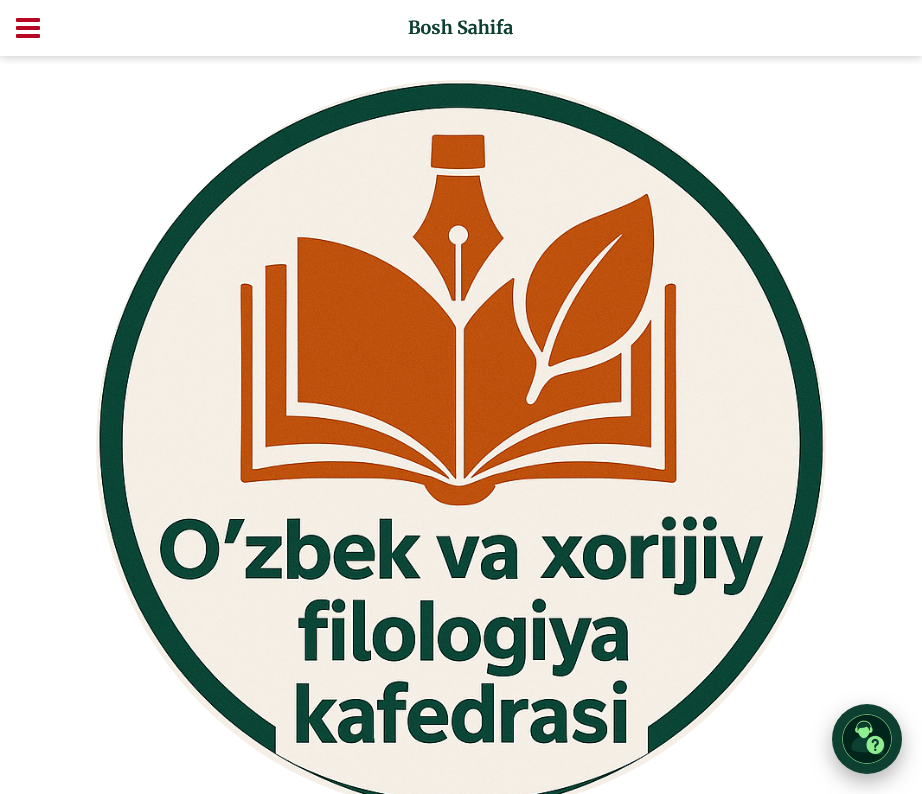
#include "include/core/SkBlurTypes.h"
#include "include/core/SkCanvas.h"
#include "include/core/SkData.h"
#include "include/core/SkFont.h"
#include "include/core/SkFontMgr.h"
#include "include/core/SkImage.h"
#include "include/core/SkMaskFilter.h"
#include "include/core/SkPaint.h"
#include "include/core/SkPathBuilder.h"
#include "include/core/SkTextBlob.h"
#include "include/effects/SkDashPathEffect.h"
#include "include/effects/SkGradientShader.h"
#include "include/utils/SkParsePath.h"

extern sk_sp<SkFontMgr> fontMgr;

static SkFont font(const char* family, int weight, float size, bool italic = false) {
    SkFontStyle style(weight, SkFontStyle::kNormal_Width,
        italic ? SkFontStyle::kItalic_Slant : SkFontStyle::kUpright_Slant);
    SkFont result(fontMgr->matchFamilyStyle(family, style), size);
    result.setSubpixel(true);
    return result;
}

static void drawLabel(SkCanvas* canvas, const char* s, float x, float y, const SkFont& font, SkColor color) {
    SkPaint ink(SkColor4f::FromColor(color));
    ink.setAntiAlias(true);
    canvas->drawString(s, x, y, font, ink);
}

static void drawPhoto(SkCanvas* canvas, const char* path, float x, float y, float w, float h) {
    auto image = SkImages::DeferredFromEncodedData(SkData::MakeFromFileName(path));
    canvas->drawImageRect(image, SkRect::MakeXYWH(x, y, w, h), SkSamplingOptions());
}

void draw(SkCanvas* canvas) {
    SkPaint paint;
    paint.setAntiAlias(true);
    canvas->clear(0xFFFFFFFF);
    canvas->save();
    canvas->clipRect(SkRect::MakeXYWH(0, 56, 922, 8));
    paint.setColor(0x59434345);
    paint.setMaskFilter(SkMaskFilter::MakeBlur(kNormal_SkBlurStyle, 5));
    canvas->drawRect(SkRect::MakeXYWH(0, 0, 922, 56), paint);
    paint.setMaskFilter(nullptr);
    canvas->restore();
    drawPhoto(canvas, "assets/img1.png", 16, 18, 24, 20);
    SkFont font1 = font("Merriweather", 700, 18);
    drawLabel(canvas, "Bosh Sahifa", 408, 34, font1, 0xFF0E4032);
    drawPhoto(canvas, "assets/img2.png", 96, 80, 730, 714);
    paint.setColor(0x4D000000);
    paint.setMaskFilter(SkMaskFilter::MakeBlur(kNormal_SkBlurStyle, 10));
    canvas->drawRoundRect(SkRect::MakeXYWH(832, 712, 70, 70), 35, 35, paint);
    paint.setMaskFilter(nullptr);
    paint.setColor(0xFF0E4032);
    canvas->drawCircle(867, 739, 35, paint);
    drawPhoto(canvas, "assets/img3.png", 842, 714, 50, 50);
}
